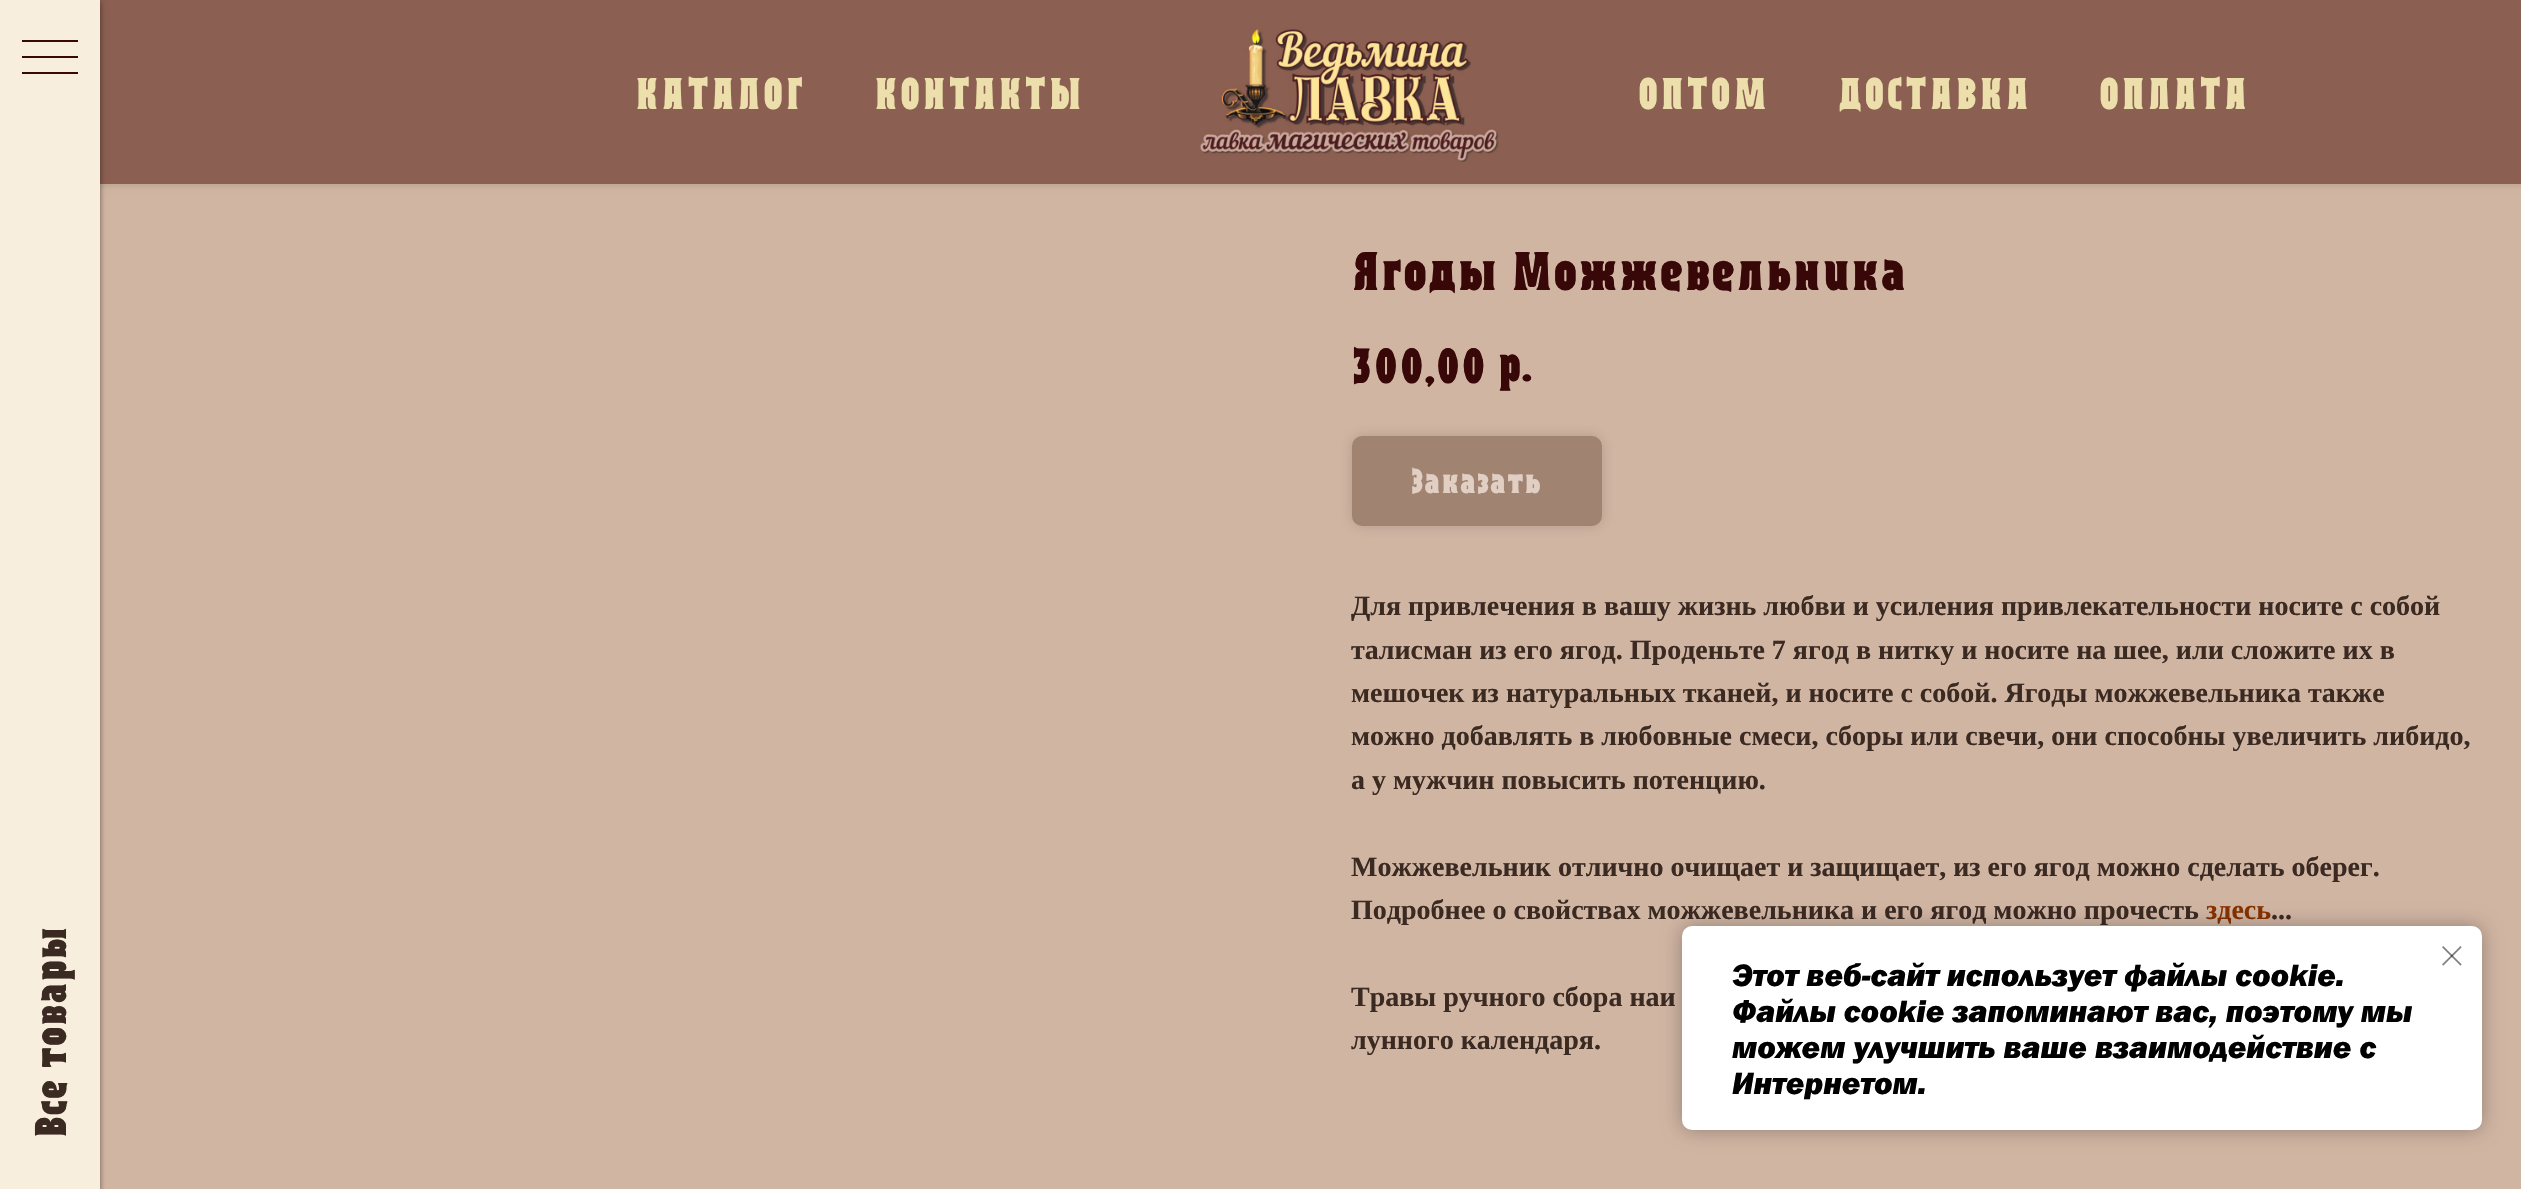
#include "include/core/SkBlurTypes.h"
#include "include/core/SkCanvas.h"
#include "include/core/SkData.h"
#include "include/core/SkFont.h"
#include "include/core/SkFontMgr.h"
#include "include/core/SkImage.h"
#include "include/core/SkMaskFilter.h"
#include "include/core/SkPaint.h"
#include "include/core/SkPathBuilder.h"
#include "include/core/SkTextBlob.h"
#include "include/effects/SkDashPathEffect.h"
#include "include/effects/SkGradientShader.h"
#include "include/utils/SkParsePath.h"

extern sk_sp<SkFontMgr> fontMgr;

static SkFont font(const char* family, int weight, float size, bool italic = false) {
    SkFontStyle style(weight, SkFontStyle::kNormal_Width,
        italic ? SkFontStyle::kItalic_Slant : SkFontStyle::kUpright_Slant);
    SkFont result(fontMgr->matchFamilyStyle(family, style), size);
    result.setSubpixel(true);
    return result;
}

static void drawLabel(SkCanvas* canvas, const char* s, float x, float y, const SkFont& font, SkColor color) {
    SkPaint ink(SkColor4f::FromColor(color));
    ink.setAntiAlias(true);
    canvas->drawString(s, x, y, font, ink);
}

static void drawTracked(SkCanvas* canvas, const char* s, float x, float y, const SkFont& font, const SkPaint& ink, float letter, float word) {
    std::vector<SkGlyphID> glyphs(font.countText(s, strlen(s), SkTextEncoding::kUTF8));
    std::vector<float> xs(glyphs.size());
    font.textToGlyphs(s, strlen(s), SkTextEncoding::kUTF8, glyphs);
    font.getXPos(glyphs, xs, x);
    float extra = 0;
    for (size_t i = 0; i < glyphs.size(); i++) {
        xs[i] += extra;
        extra += letter + word * (glyphs[i] == font.unicharToGlyph(' '));
    }
    canvas->drawTextBlob(SkTextBlob::MakeFromPosHGlyphs(glyphs, xs, y, font), 0, 0, ink);
}

static void fillRect(SkCanvas* canvas, float x, float y, float w, float h, SkColor color) {
    SkPaint ink(SkColor4f::FromColor(color));
    ink.setAntiAlias(true);
    canvas->drawRect(SkRect::MakeXYWH(x, y, w, h), ink);
}

static void fillRRect(SkCanvas* canvas, float x, float y, float w, float h, float radius, SkColor color) {
    SkPaint ink(SkColor4f::FromColor(color));
    ink.setAntiAlias(true);
    canvas->drawRoundRect(SkRect::MakeXYWH(x, y, w, h), radius, radius, ink);
}

static void drawPhoto(SkCanvas* canvas, const char* path, float x, float y, float w, float h) {
    auto image = SkImages::DeferredFromEncodedData(SkData::MakeFromFileName(path));
    canvas->drawImageRect(image, SkRect::MakeXYWH(x, y, w, h), SkSamplingOptions());
}

void draw(SkCanvas* canvas) {
    SkPaint paint;
    paint.setAntiAlias(true);
    canvas->clear(0xFFD1B5A3);
    paint.setColor(0x1A000000);
    paint.setMaskFilter(SkMaskFilter::MakeBlur(kNormal_SkBlurStyle, 3));
    canvas->drawRect(SkRect::MakeXYWH(100, 2, 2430, 184), paint);
    paint.setMaskFilter(nullptr);
    fillRect(canvas, 100, 0, 2421, 184, 0xFF8B5F51);
    SkFont font1 = font("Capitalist", 400, 36);
    paint.setColor(0xFFEDDFAB);
    drawTracked(canvas, "КАТАЛОГ", 635, 109, font1, paint, 2, 0);
    drawTracked(canvas, "КОНТАКТЫ", 874, 109, font1, paint, 2, 0);
    drawPhoto(canvas, "assets/img1.png", 1200, 28, 299, 134);
    drawTracked(canvas, "ОПТОМ", 1638, 109, font1, paint, 2, 0);
    drawTracked(canvas, "ДОСТАВКА", 1838, 109, font1, paint, 2, 0);
    drawTracked(canvas, "ОПЛАТА", 2099, 109, font1, paint, 2, 0);
    paint.setColor(0x80000000);
    paint.setMaskFilter(SkMaskFilter::MakeBlur(kNormal_SkBlurStyle, 3));
    canvas->drawRect(SkRect::MakeXYWH(-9, 2, 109, 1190), paint);
    paint.setMaskFilter(nullptr);
    fillRect(canvas, 0, 0, 100, 1189, 0xFFF7EEDD);
    fillRect(canvas, 22, 40, 56, 2, 0xFF380707);
    fillRect(canvas, 22, 56, 56, 2, 0xFF380707);
    fillRect(canvas, 22, 72, 56, 2, 0xFF380707);
    canvas->save();
    canvas->rotate(-90, 66, 1138);
    drawLabel(canvas, "Все товары", 66, 1138, font1, 0xFF3B2A22);
    canvas->restore();
    SkFont font2 = font("Capitalist", 400, 44);
    drawLabel(canvas, "Ягоды Можжевельника", 1351, 290, font2, 0xFF380707);
    SkFont font3 = font("Capitalist", 400, 40);
    drawLabel(canvas, "300,00", 1351, 383, font3, 0xFF380707);
    drawLabel(canvas, "р.", 1497, 381, font3, 0xFF380707);
    paint.setColor(0x4D695B52);
    paint.setMaskFilter(SkMaskFilter::MakeBlur(kNormal_SkBlurStyle, 7));
    canvas->drawRoundRect(SkRect::MakeXYWH(1352, 436, 250, 90), 10, 10, paint);
    paint.setMaskFilter(nullptr);
    fillRRect(canvas, 1352, 436, 250, 90, 10, 0xFFA18372);
    SkFont font4 = font("Capitalist", 400, 28);
    drawLabel(canvas, "Заказать", 1411, 493, font4, 0xFFE1CFC3);
    SkFont font5 = font("Liberation Serif", 700, 28);
    drawLabel(canvas, "Для привлечения в вашу жизнь любви и усиления привлекательности носите с собой", 1351, 615, font5, 0xFF3B2A22);
    drawLabel(canvas, "талисман из его ягод. Проденьте 7 ягод в нитку и носите на шее, или сложите их в", 1351, 659, font5, 0xFF3B2A22);
    drawLabel(canvas, "мешочек из натуральных тканей, и носите с собой. Ягоды можжевельника также", 1351, 702, font5, 0xFF3B2A22);
    drawLabel(canvas, "можно добавлять в любовные смеси, сборы или свечи, они способны увеличить либидо,", 1351, 745, font5, 0xFF3B2A22);
    drawLabel(canvas, "а у мужчин повысить потенцию.", 1351, 789, font5, 0xFF3B2A22);
    drawLabel(canvas, "Можжевельник отлично очищает и защищает, из его ягод можно сделать оберег.", 1351, 876, font5, 0xFF3B2A22);
    drawLabel(canvas, "Подробнее о свойствах можжевельника и его ягод можно прочесть", 1351, 919, font5, 0xFF3B2A22);
    drawLabel(canvas, "здесь", 2206, 919, font5, 0xFF873200);
    drawLabel(canvas, "...", 2271, 919, font5, 0xFF3B2A22);
    drawLabel(canvas, "Травы ручного сбора наи", 1351, 1006, font5, 0xFF3B2A22);
    drawLabel(canvas, "лунного календаря.", 1351, 1049, font5, 0xFF3B2A22);
    paint.setColor(0x4D000000);
    paint.setMaskFilter(SkMaskFilter::MakeBlur(kNormal_SkBlurStyle, 10));
    canvas->drawRoundRect(SkRect::MakeXYWH(1682, 926, 800, 204), 10, 10, paint);
    paint.setMaskFilter(nullptr);
    fillRRect(canvas, 1682, 926, 800, 204, 10, 0xFFFFFFFF);
    drawPhoto(canvas, "assets/img2.png", 2442, 946, 20, 20);
    SkFont font6 = font("Franklin Gothic", 900, 32, true);
    drawLabel(canvas, "Этот веб-сайт использует файлы cookie.", 1732, 986, font6, 0xFF000000);
    drawLabel(canvas, "Файлы cookie запоминают вас, поэтому мы", 1732, 1022, font6, 0xFF000000);
    drawLabel(canvas, "можем улучшить ваше взаимодействие с", 1732, 1058, font6, 0xFF000000);
    drawLabel(canvas, "Интернетом.", 1732, 1094, font6, 0xFF000000);
}
